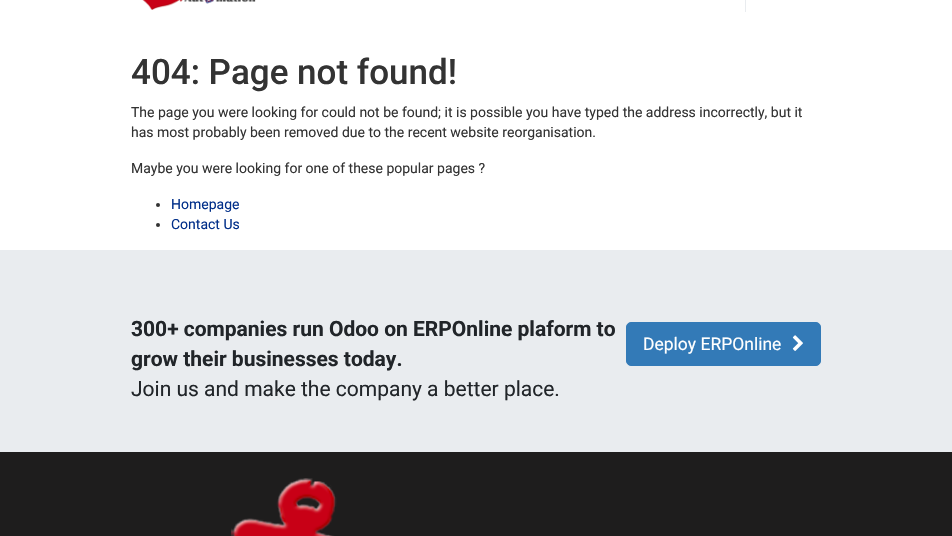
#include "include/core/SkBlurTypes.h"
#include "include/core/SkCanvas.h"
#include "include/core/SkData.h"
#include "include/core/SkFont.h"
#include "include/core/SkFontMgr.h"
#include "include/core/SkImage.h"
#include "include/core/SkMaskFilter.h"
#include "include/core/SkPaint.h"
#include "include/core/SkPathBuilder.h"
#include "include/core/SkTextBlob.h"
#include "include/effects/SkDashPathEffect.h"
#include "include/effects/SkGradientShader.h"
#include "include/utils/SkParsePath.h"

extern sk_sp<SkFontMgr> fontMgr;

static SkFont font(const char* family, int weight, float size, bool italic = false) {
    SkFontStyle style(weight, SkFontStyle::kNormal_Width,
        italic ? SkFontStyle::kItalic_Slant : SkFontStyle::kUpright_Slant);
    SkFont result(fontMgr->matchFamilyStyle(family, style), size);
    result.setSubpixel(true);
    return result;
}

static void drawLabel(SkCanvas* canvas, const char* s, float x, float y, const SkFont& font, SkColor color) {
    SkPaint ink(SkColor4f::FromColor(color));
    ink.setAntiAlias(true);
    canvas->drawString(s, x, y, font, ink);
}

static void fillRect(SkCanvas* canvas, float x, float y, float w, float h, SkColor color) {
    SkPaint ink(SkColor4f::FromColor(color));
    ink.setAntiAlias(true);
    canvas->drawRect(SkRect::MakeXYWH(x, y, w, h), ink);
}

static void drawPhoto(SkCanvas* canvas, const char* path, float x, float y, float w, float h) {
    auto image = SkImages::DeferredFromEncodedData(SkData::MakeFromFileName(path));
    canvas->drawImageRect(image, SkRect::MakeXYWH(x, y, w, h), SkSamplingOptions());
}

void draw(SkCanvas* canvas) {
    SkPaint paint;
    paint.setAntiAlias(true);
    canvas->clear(0xFFFFFFFF);
    drawPhoto(canvas, "assets/img1.png", 142, 0, 114, 10);
    fillRect(canvas, 745, 0, 1, 12, 0xFFE9ECEF);
    SkFont font1 = font("Roboto", 500, 35);
    drawLabel(canvas, "404: Page not found!", 131, 84, font1, 0xFF333333);
    SkFont font2 = font("Roboto", 400, 14);
    drawLabel(canvas, "The page you were looking for could not be found; it is possible you have typed the address incorrectly, but it", 131, 117, font2, 0xFF333333);
    drawLabel(canvas, "has most probably been removed due to the recent website reorganisation.", 131, 137, font2, 0xFF333333);
    drawLabel(canvas, "Maybe you were looking for one of these popular pages ?", 131, 173, font2, 0xFF333333);
    paint.setColor(0xFF333333);
    canvas->drawCircle(158, 205, 2, paint);
    drawLabel(canvas, "Homepage", 171, 209, font2, 0xFF002E89);
    canvas->drawCircle(158, 225, 2, paint);
    drawLabel(canvas, "Contact Us", 171, 229, font2, 0xFF002E89);
    fillRect(canvas, 0, 250, 952, 202, 0xFFE9ECEF);
    SkFont font3 = font("Roboto", 700, 21);
    drawLabel(canvas, "300+ companies run Odoo on ERPOnline plaform to", 131, 336, font3, 0xFF212529);
    drawLabel(canvas, "grow their businesses today.", 131, 366, font3, 0xFF212529);
    SkFont font4 = font("Roboto", 400, 21);
    drawLabel(canvas, "Join us and make the company a better place.", 131, 396, font4, 0xFF212529);
    paint.setColor(0xFF337AB7);
    canvas->drawRoundRect(SkRect::MakeXYWH(626.5f, 322.5f, 194, 43), 4.5f, 4.5f, paint);
    paint.setStroke(true);
    paint.setStrokeWidth(1);
    canvas->drawRoundRect(SkRect::MakeXYWH(626.5f, 322.5f, 194, 43), 4.5f, 4.5f, paint);
    SkFont font5 = font("Roboto", 400, 17.5f);
    drawLabel(canvas, "Deploy ERPOnline", 643, 350, font5, 0xFFFFFFFF);
    drawPhoto(canvas, "assets/img2.png", 792, 335, 11, 16);
    fillRect(canvas, 0, 452, 952, 84, 0xFF1E1D1D);
    drawPhoto(canvas, "assets/img3.png", 231, 478, 106, 58);
}
